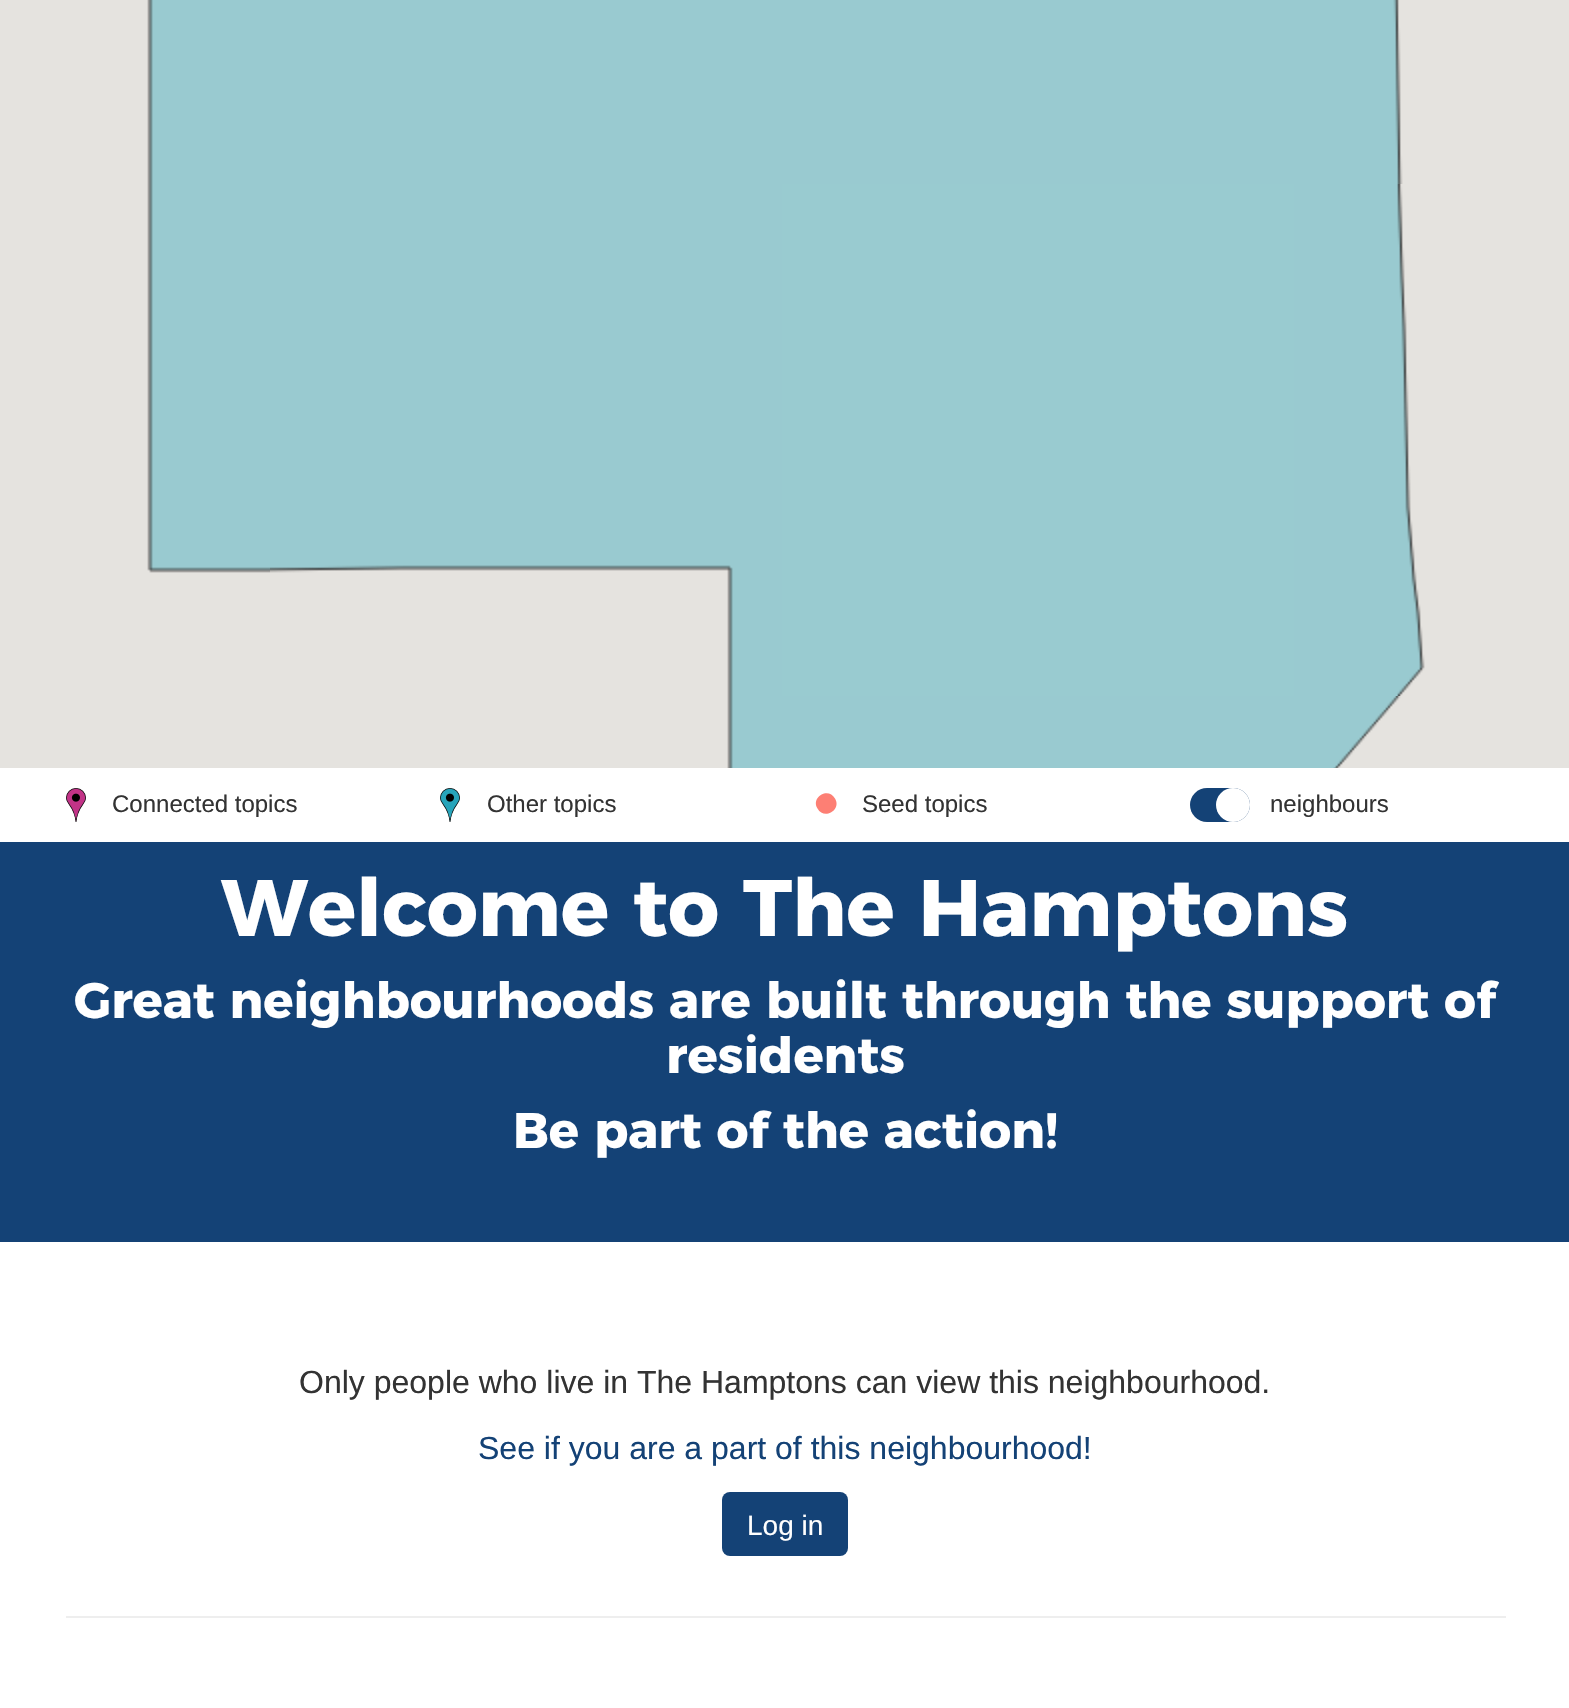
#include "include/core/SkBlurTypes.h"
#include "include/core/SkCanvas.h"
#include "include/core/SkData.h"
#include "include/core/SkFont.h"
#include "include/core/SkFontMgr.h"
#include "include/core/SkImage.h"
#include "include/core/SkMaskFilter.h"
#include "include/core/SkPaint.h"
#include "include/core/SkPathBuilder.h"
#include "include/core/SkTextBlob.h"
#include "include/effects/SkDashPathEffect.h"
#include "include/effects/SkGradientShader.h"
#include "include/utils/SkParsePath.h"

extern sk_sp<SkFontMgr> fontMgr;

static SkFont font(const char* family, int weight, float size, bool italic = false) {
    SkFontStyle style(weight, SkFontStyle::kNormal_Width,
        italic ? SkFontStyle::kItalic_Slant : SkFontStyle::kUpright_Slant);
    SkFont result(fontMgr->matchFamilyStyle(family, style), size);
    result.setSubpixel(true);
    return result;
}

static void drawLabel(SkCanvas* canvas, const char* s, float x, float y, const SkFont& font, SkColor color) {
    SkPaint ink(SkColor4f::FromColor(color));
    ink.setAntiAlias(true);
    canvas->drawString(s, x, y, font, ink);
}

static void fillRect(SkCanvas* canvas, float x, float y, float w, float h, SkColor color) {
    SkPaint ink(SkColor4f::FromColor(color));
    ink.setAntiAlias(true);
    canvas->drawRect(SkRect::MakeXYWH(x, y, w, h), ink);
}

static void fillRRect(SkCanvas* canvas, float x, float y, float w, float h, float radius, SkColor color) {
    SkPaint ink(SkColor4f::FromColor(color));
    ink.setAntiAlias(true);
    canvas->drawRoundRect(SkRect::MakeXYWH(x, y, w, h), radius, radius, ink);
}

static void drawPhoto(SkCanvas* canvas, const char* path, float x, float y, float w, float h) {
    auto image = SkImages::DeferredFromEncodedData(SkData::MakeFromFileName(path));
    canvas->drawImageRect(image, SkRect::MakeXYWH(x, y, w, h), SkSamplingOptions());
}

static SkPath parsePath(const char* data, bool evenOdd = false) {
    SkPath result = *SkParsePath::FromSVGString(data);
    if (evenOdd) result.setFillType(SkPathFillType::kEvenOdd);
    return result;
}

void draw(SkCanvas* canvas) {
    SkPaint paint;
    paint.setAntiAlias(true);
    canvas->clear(0xFFFFFFFF);
    fillRect(canvas, 0, 0, 1569, 768, 0xFFE5E3DF);
    drawPhoto(canvas, "assets/img1.png", 147, 0, 123, 184);
    fillRect(canvas, 270, 0, 1024, 184, 0xFF99CAD0);
    drawPhoto(canvas, "assets/img2.png", 1294, 0, 109, 184);
    drawPhoto(canvas, "assets/img3.png", 147, 184, 123, 389);
    drawPhoto(canvas, "assets/img4.png", 270, 184, 512, 512);
    fillRect(canvas, 782, 184, 512, 512, 0xFF99CBD0);
    drawPhoto(canvas, "assets/img5.png", 1294, 184, 131, 512);
    drawPhoto(canvas, "assets/img6.png", 727, 696, 55, 72);
    fillRect(canvas, 782, 696, 512, 72, 0xFF99CAD0);
    drawPhoto(canvas, "assets/img7.png", 1294, 696, 107, 72);
    drawPhoto(canvas, "assets/img8.png", 66, 788, 20, 34);
    SkFont font1 = font("Liberation Sans", 400, 24);
    drawLabel(canvas, "Connected topics", 112, 812, font1, 0xFF333333);
    drawPhoto(canvas, "assets/img9.png", 440, 788, 20, 34);
    drawLabel(canvas, "Other topics", 487, 812, font1, 0xFF333333);
    paint.setColor(0xFFFD7F74);
    canvas->drawPath(parsePath("M835 798.5C842 810 824 820.5 817.5 808.5C810.5 797 828.5 786.5 835 798.5Z"), paint);
    drawLabel(canvas, "Seed topics", 862, 812, font1, 0xFF333333);
    fillRRect(canvas, 1190, 788, 60, 34, 17, 0xFF144276);
    paint.setColor(0xFFFFFFFF);
    canvas->drawCircle(1233, 805, 17, paint);
    drawLabel(canvas, "neighbours", 1270, 812, font1, 0xFF333333);
    fillRect(canvas, 0, 842, 1569, 400, 0xFF144276);
    SkFont font2 = font("Montserrat", 700, 80);
    drawLabel(canvas, "Welcome to The Hamptons", 221, 936, font2, 0xFFFFFFFF);
    SkFont font3 = font("Montserrat", 700, 50);
    drawLabel(canvas, "Great neighbourhoods are built through the support of", 74, 1018, font3, 0xFFFFFFFF);
    drawLabel(canvas, "residents", 666, 1073, font3, 0xFFFFFFFF);
    drawLabel(canvas, "Be part of the action!", 513, 1148, font3, 0xFFFFFFFF);
    SkFont font4 = font("Liberation Sans", 400, 32);
    drawLabel(canvas, "Only people who live in The Hamptons can view this neighbourhood.", 299, 1393, font4, 0xFF333333);
    drawLabel(canvas, "See if you are a part of this neighbourhood!", 478, 1459, font4, 0xFF144276);
    fillRRect(canvas, 722, 1492, 126, 64, 8, 0xFF144276);
    SkFont font5 = font("Liberation Sans", 400, 28);
    drawLabel(canvas, "Log in", 747, 1535, font5, 0xFFFFFFFF);
    fillRect(canvas, 66, 1616, 1440, 2, 0xFFEEEEEE);
}
